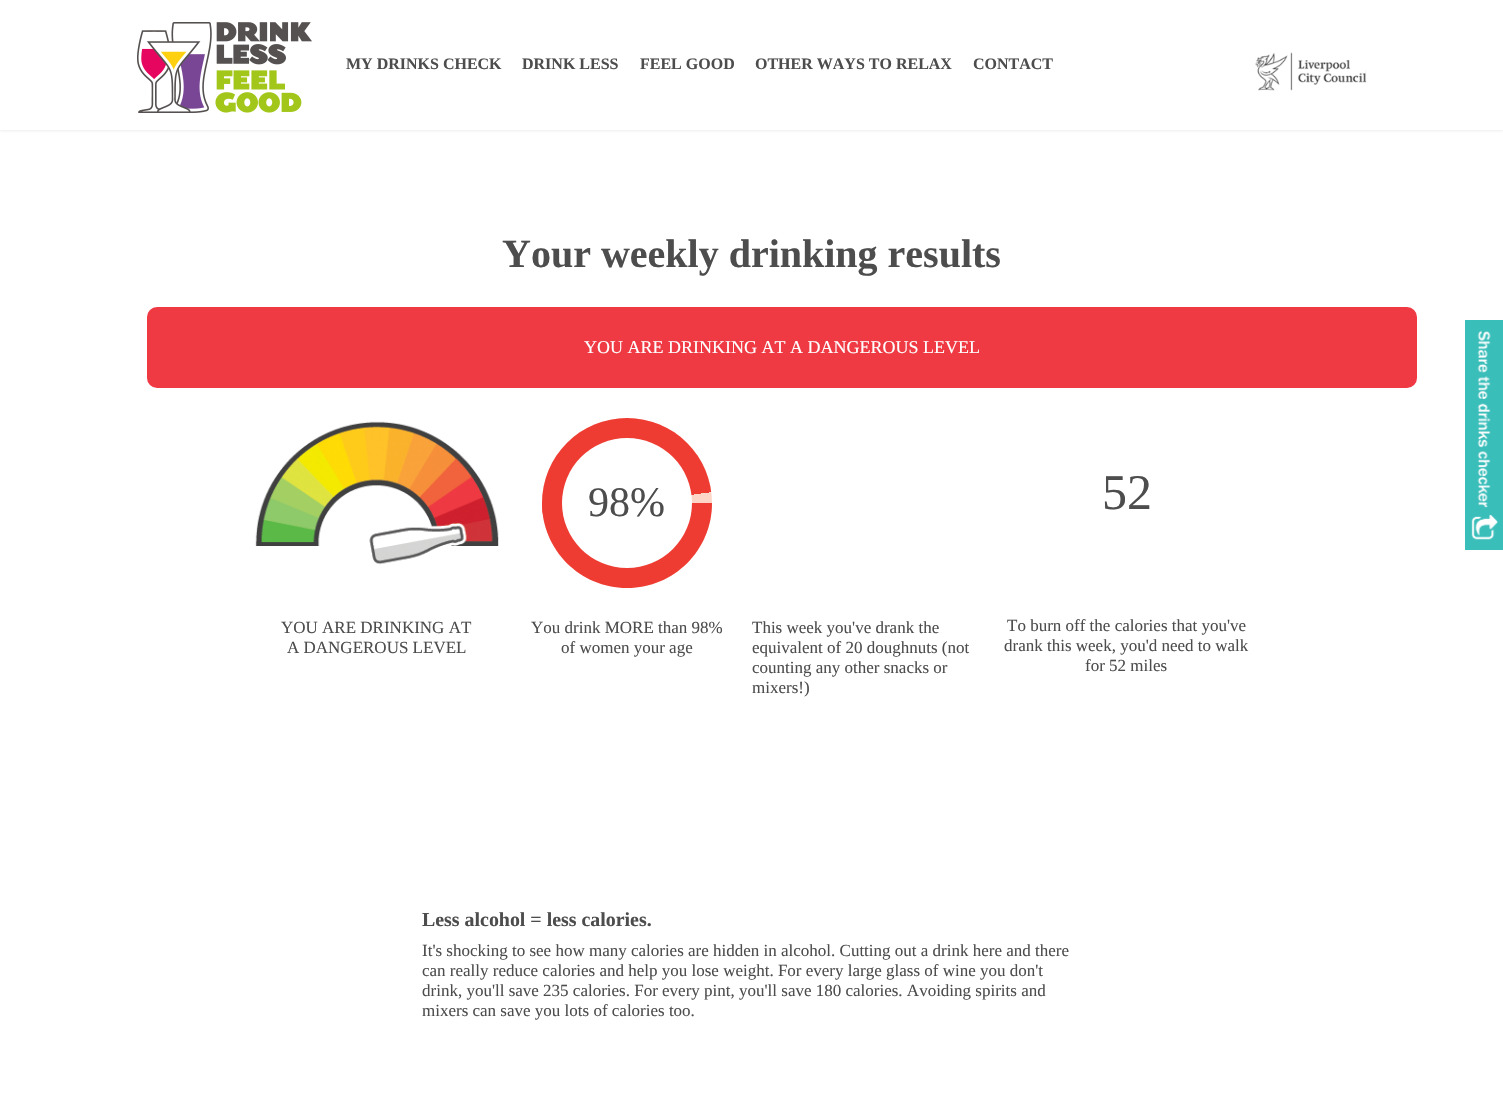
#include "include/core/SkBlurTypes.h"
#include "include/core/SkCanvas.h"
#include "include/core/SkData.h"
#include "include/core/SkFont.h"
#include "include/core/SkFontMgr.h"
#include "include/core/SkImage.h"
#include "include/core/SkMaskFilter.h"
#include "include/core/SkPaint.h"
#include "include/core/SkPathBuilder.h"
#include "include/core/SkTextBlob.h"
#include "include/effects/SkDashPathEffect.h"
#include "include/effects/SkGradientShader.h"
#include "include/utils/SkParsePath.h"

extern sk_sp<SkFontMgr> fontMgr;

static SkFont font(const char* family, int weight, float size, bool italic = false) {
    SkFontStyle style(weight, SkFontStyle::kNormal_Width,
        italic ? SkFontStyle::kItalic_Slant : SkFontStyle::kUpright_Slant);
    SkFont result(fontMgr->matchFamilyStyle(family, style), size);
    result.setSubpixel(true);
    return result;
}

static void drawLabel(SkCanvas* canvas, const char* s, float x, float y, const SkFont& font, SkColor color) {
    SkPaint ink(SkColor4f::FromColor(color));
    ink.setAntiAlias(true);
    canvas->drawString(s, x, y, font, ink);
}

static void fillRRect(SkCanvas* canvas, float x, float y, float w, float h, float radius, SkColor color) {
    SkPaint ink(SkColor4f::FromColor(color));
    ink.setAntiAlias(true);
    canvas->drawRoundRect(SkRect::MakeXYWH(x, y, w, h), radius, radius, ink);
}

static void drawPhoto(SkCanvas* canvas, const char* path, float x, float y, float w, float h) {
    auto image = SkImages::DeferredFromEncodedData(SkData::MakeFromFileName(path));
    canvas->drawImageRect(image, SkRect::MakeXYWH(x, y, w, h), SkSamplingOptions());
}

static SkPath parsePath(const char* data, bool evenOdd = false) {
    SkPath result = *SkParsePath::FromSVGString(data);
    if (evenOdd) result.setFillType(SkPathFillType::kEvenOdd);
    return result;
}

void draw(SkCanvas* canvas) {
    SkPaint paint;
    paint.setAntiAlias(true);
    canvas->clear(0xFFFFFFFF);
    canvas->save();
    canvas->clipRect(SkRect::MakeXYWH(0, 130, 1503, 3));
    paint.setColor(0xFFEEEEEE);
    paint.setMaskFilter(SkMaskFilter::MakeBlur(kNormal_SkBlurStyle, 1));
    canvas->drawRect(SkRect::MakeXYWH(0, 1, 1503, 130), paint);
    paint.setMaskFilter(nullptr);
    canvas->restore();
    drawPhoto(canvas, "assets/img1.png", 137, 22, 175, 91);
    SkFont font1 = font("Liberation Serif", 700, 16);
    drawLabel(canvas, "MY DRINKS CHECK", 346, 69, font1, 0xFF4D4D4D);
    drawLabel(canvas, "DRINK LESS", 522, 69, font1, 0xFF4D4D4D);
    drawLabel(canvas, "FEEL GOOD", 640, 69, font1, 0xFF4D4D4D);
    drawLabel(canvas, "OTHER WAYS TO RELAX", 755, 69, font1, 0xFF4D4D4D);
    drawLabel(canvas, "CONTACT", 973, 69, font1, 0xFF4D4D4D);
    drawPhoto(canvas, "assets/img2.png", 1255, 52, 112, 39);
    SkFont font2 = font("Liberation Serif", 700, 40);
    drawLabel(canvas, "Your weekly drinking results", 502, 267, font2, 0xFF4D4D4D);
    fillRRect(canvas, 147, 307, 1270, 81, 10, 0xFFEF3943);
    SkFont font3 = font("Liberation Serif", 400, 18);
    drawLabel(canvas, "YOU ARE DRINKING AT A DANGEROUS LEVEL", 584, 353, font3, 0xFFFFFFFF);
    drawPhoto(canvas, "assets/img3.png", 255, 421, 244, 144);
    SkFont font4 = font("Liberation Serif", 400, 17);
    drawLabel(canvas, "YOU ARE DRINKING AT", 281, 633, font4, 0xFF4D4D4D);
    drawLabel(canvas, "A DANGEROUS LEVEL", 287, 653, font4, 0xFF4D4D4D);
    paint.setColor(0xFFFDD6C7);
    canvas->drawCircle(627, 503, 85, paint);
    paint.setColor(0xFFEF3C33);
    canvas->drawPath(parsePath("M542 503H712C712 550 674 588 627 588C580 588 542 550 542 503Z"), paint);
    {
        const SkColor colors[] = {0x00EF3C33, 0xFFEF3C33};
        const float stops[] = {0.5f, 0.5f};
        const SkPoint ends[] = {{639, 597}, {615, 409}};
        paint.setShader(SkGradientShader::MakeLinear(ends, colors, stops, 2, SkTileMode::kClamp));
        paint.setAlpha(255);
    }
    canvas->drawCircle(627, 503, 85, paint);
    paint.setShader(nullptr);
    paint.setColor(0xFFFFFFFF);
    canvas->drawCircle(627, 503, 65, paint);
    SkFont font5 = font("Liberation Serif", 400, 42);
    drawLabel(canvas, "98%", 588, 516, font5, 0xFF4D4D4D);
    drawLabel(canvas, "You drink MORE than 98%", 531, 633, font4, 0xFF4D4D4D);
    drawLabel(canvas, "of women your age", 561, 653, font4, 0xFF4D4D4D);
    drawLabel(canvas, "This week you've drank the", 752, 633, font4, 0xFF4D4D4D);
    drawLabel(canvas, "equivalent of 20 doughnuts (not", 752, 653, font4, 0xFF4D4D4D);
    drawLabel(canvas, "counting any other snacks or", 752, 673, font4, 0xFF4D4D4D);
    drawLabel(canvas, "mixers!)", 752, 693, font4, 0xFF4D4D4D);
    SkFont font6 = font("Liberation Serif", 400, 50);
    drawLabel(canvas, "52", 1102, 509, font6, 0xFF4D4D4D);
    drawLabel(canvas, "To burn off the calories that you've", 1007, 631, font4, 0xFF4D4D4D);
    drawLabel(canvas, "drank this week, you'd need to walk", 1004, 651, font4, 0xFF4D4D4D);
    drawLabel(canvas, "for 52 miles", 1085, 671, font4, 0xFF4D4D4D);
    SkFont font7 = font("Liberation Serif", 700, 19.9f);
    drawLabel(canvas, "Less alcohol = less calories.", 422, 926, font7, 0xFF4D4D4D);
    drawLabel(canvas, "It's shocking to see how many calories are hidden in alcohol. Cutting out a drink here and there", 422, 956, font4, 0xFF4D4D4D);
    drawLabel(canvas, "can really reduce calories and help you lose weight. For every large glass of wine you don't", 422, 976, font4, 0xFF4D4D4D);
    drawLabel(canvas, "drink, you'll save 235 calories. For every pint, you'll save 180 calories. Avoiding spirits and", 422, 996, font4, 0xFF4D4D4D);
    drawLabel(canvas, "mixers can save you lots of calories too.", 422, 1016, font4, 0xFF4D4D4D);
    drawPhoto(canvas, "assets/img4.png", 1465, 320, 38, 230);
}
